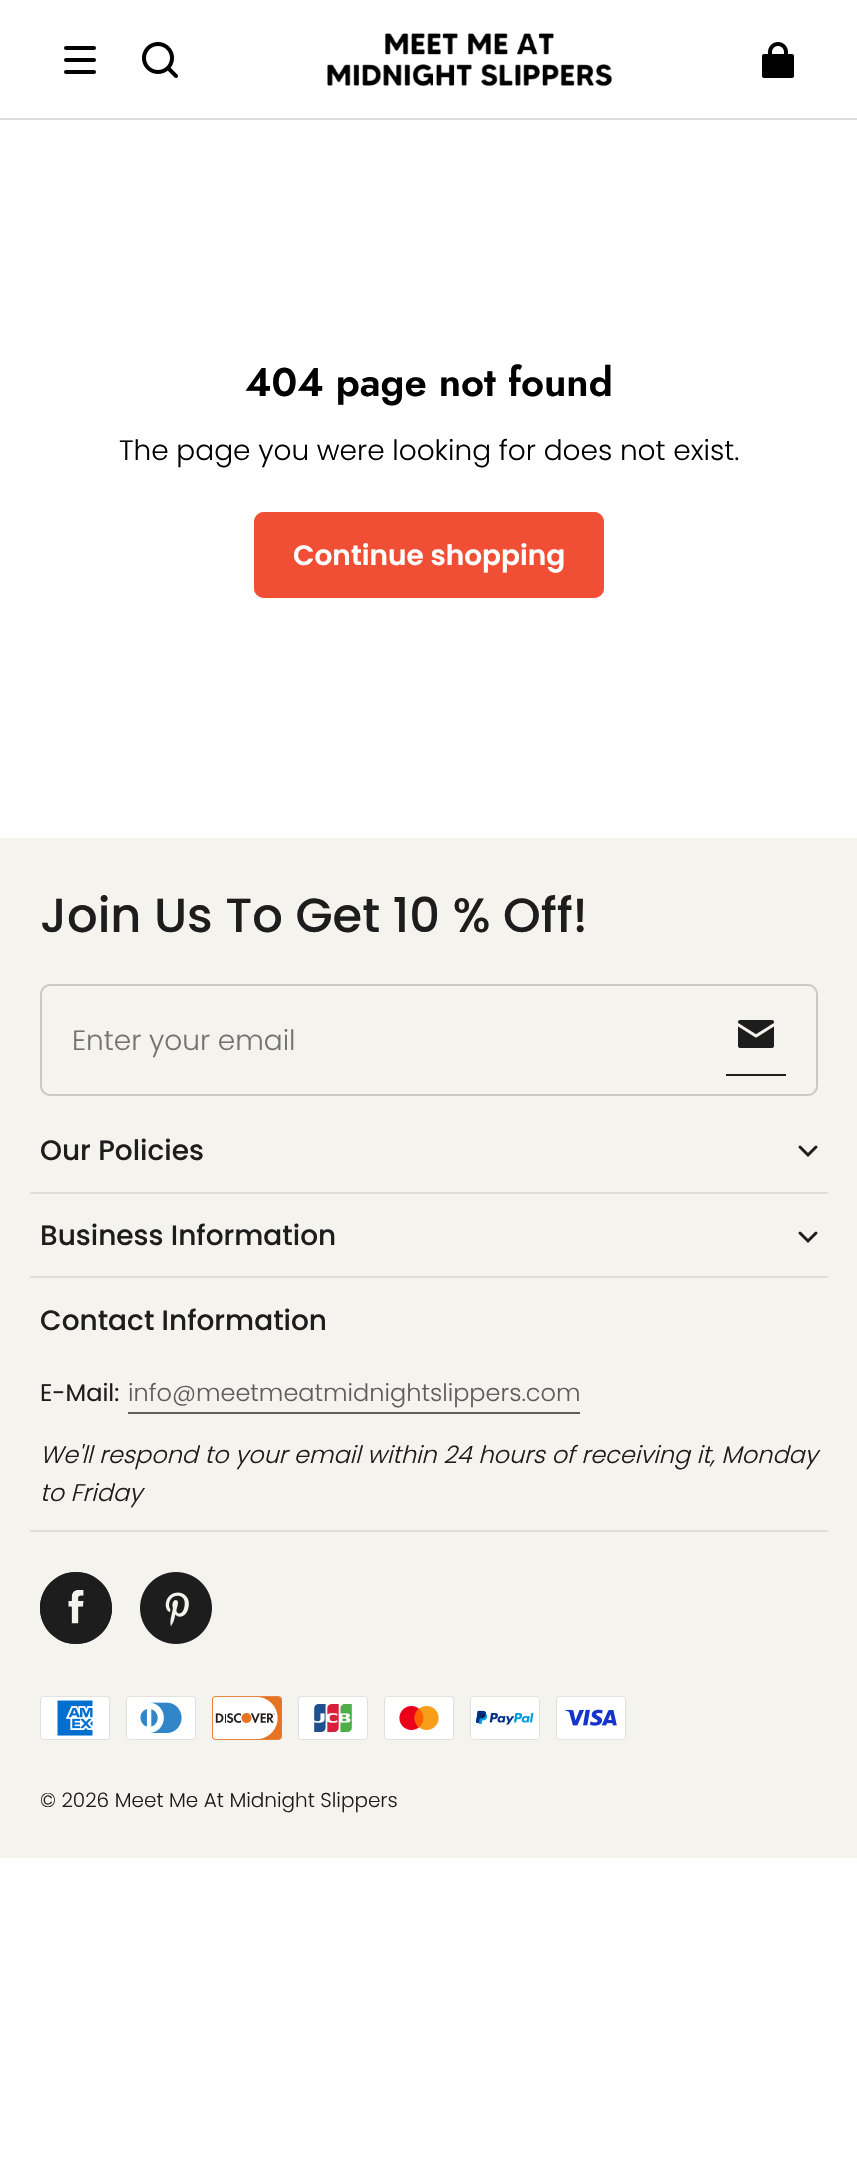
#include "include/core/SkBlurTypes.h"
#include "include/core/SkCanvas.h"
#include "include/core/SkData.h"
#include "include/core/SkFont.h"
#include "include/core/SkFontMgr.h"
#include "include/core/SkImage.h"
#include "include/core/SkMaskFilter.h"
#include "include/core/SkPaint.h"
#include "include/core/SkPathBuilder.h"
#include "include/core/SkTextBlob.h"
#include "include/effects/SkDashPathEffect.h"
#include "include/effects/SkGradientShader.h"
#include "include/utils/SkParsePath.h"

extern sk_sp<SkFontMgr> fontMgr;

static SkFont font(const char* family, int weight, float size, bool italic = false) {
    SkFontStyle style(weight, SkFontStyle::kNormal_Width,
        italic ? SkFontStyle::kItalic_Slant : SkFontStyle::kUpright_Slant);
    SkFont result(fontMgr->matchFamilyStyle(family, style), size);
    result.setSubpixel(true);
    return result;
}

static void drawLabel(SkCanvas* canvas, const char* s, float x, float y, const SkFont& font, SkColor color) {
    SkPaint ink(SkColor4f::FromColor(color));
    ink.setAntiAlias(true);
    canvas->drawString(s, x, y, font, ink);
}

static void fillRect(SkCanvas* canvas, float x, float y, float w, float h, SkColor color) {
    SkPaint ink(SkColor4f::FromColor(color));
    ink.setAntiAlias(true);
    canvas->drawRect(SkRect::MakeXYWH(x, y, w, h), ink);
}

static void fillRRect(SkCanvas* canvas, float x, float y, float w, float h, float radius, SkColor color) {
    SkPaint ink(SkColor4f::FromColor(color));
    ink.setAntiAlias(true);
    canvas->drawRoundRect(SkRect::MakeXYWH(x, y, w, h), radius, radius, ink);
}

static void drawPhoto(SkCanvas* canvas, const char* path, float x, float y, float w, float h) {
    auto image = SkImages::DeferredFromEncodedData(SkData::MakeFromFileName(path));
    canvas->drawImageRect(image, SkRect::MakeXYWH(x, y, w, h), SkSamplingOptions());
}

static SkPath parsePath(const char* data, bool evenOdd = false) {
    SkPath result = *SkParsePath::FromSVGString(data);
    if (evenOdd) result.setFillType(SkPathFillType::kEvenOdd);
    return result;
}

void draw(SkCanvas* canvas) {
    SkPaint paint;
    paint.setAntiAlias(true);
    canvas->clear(0xFFFFFFFF);
    fillRect(canvas, 0, 118, 857, 2, 0xFFDDDDDD);
    paint.setStroke(true);
    paint.setStrokeWidth(4);
    paint.setStrokeCap(SkPaint::kRound_Cap);
    paint.setColor(0xFF000000);
    canvas->drawPath(parsePath("M66 48H94M66 60H94M66 72H94"), paint);
    drawPhoto(canvas, "assets/img1.png", 142, 42, 36, 36);
    drawPhoto(canvas, "assets/img2.png", 327, 33, 286, 54);
    drawPhoto(canvas, "assets/img3.png", 762, 42, 32, 36);
    SkFont font1 = font("Jost", 600, 40);
    drawLabel(canvas, "404 page not found", 245, 396, font1, 0xFF000000);
    SkFont font2 = font("Poppins", 300, 28);
    drawLabel(canvas, "The page you were looking for does not exist.", 119, 460, font2, 0xFF000000);
    fillRRect(canvas, 254, 512, 350, 86, 10, 0xFFF04F36);
    paint.setStrokeWidth(2);
    paint.setStrokeCap(SkPaint::kButt_Cap);
    paint.setColor(0xFFF04F36);
    canvas->drawRoundRect(SkRect::MakeXYWH(255, 513, 348, 84), 9, 9, paint);
    SkFont font3 = font("Poppins", 600, 28);
    drawLabel(canvas, "Continue shopping", 293, 565, font3, 0xFFFFFFFF);
    fillRect(canvas, 0, 838, 857, 1020, 0xFFF5F3ED);
    SkFont font4 = font("Poppins", 500, 48);
    drawLabel(canvas, "Join Us To Get 10 % Off!", 40, 932, font4, 0xFF1D1D1D);
    drawPhoto(canvas, "assets/img4.png", 738, 1020, 36, 28);
    fillRect(canvas, 726, 1074, 60, 2, 0xFF1D1D1D);
    paint.setColor(0xFFCAC8C3);
    canvas->drawRoundRect(SkRect::MakeXYWH(41, 985, 776, 110), 9, 9, paint);
    drawLabel(canvas, "Enter your email", 72, 1050, font2, 0xFF737370);
    SkFont font5 = font("Poppins", 500, 28);
    drawLabel(canvas, "Our Policies", 40, 1160, font5, 0xFF1D1D1D);
    paint.setStrokeWidth(3);
    paint.setStrokeCap(SkPaint::kRound_Cap);
    paint.setColor(0xFF1D1D1D);
    canvas->drawPath(parsePath("M800 1147L808 1155L816 1147"), paint);
    fillRect(canvas, 30, 1192, 798, 2, 0xFFDFDED8);
    drawLabel(canvas, "Business Information", 40, 1245, font5, 0xFF1D1D1D);
    canvas->drawPath(parsePath("M800 1233L808 1241L816 1233"), paint);
    fillRect(canvas, 30, 1276, 798, 2, 0xFFDFDED8);
    drawLabel(canvas, "Contact Information", 40, 1330, font5, 0xFF1D1D1D);
    SkFont font6 = font("Poppins", 400, 24);
    drawLabel(canvas, "E-Mail:", 40, 1401, font6, 0xFF1D1D1D);
    SkFont font7 = font("Poppins", 300, 24);
    drawLabel(canvas, "info@meetmeatmidnightslippers.com", 128, 1401, font7, 0xFF5E5D5B);
    fillRect(canvas, 128, 1412, 452, 2, 0xFF5E5D5B);
    SkFont font8 = font("Poppins", 300, 24, true);
    drawLabel(canvas, "We'll respond to your email within 24 hours of receiving it, Monday", 40, 1463, font8, 0xFF1D1D1D);
    drawLabel(canvas, "to Friday", 40, 1501, font8, 0xFF1D1D1D);
    fillRect(canvas, 30, 1530, 798, 2, 0xFFDFDED8);
    drawPhoto(canvas, "assets/img5.png", 40, 1572, 72, 72);
    drawPhoto(canvas, "assets/img6.png", 140, 1572, 72, 72);
    drawPhoto(canvas, "assets/img7.png", 40, 1696, 70, 44);
    drawPhoto(canvas, "assets/img8.png", 126, 1696, 70, 44);
    drawPhoto(canvas, "assets/img9.png", 212, 1696, 70, 44);
    drawPhoto(canvas, "assets/img10.png", 298, 1696, 70, 44);
    drawPhoto(canvas, "assets/img11.png", 384, 1696, 70, 44);
    drawPhoto(canvas, "assets/img12.png", 470, 1696, 70, 44);
    drawPhoto(canvas, "assets/img13.png", 556, 1696, 70, 44);
    SkFont font9 = font("Poppins", 300, 20);
    drawLabel(canvas, "© 2026 Meet Me At Midnight Slippers", 40, 1807, font9, 0xFF1D1D1D);
}
